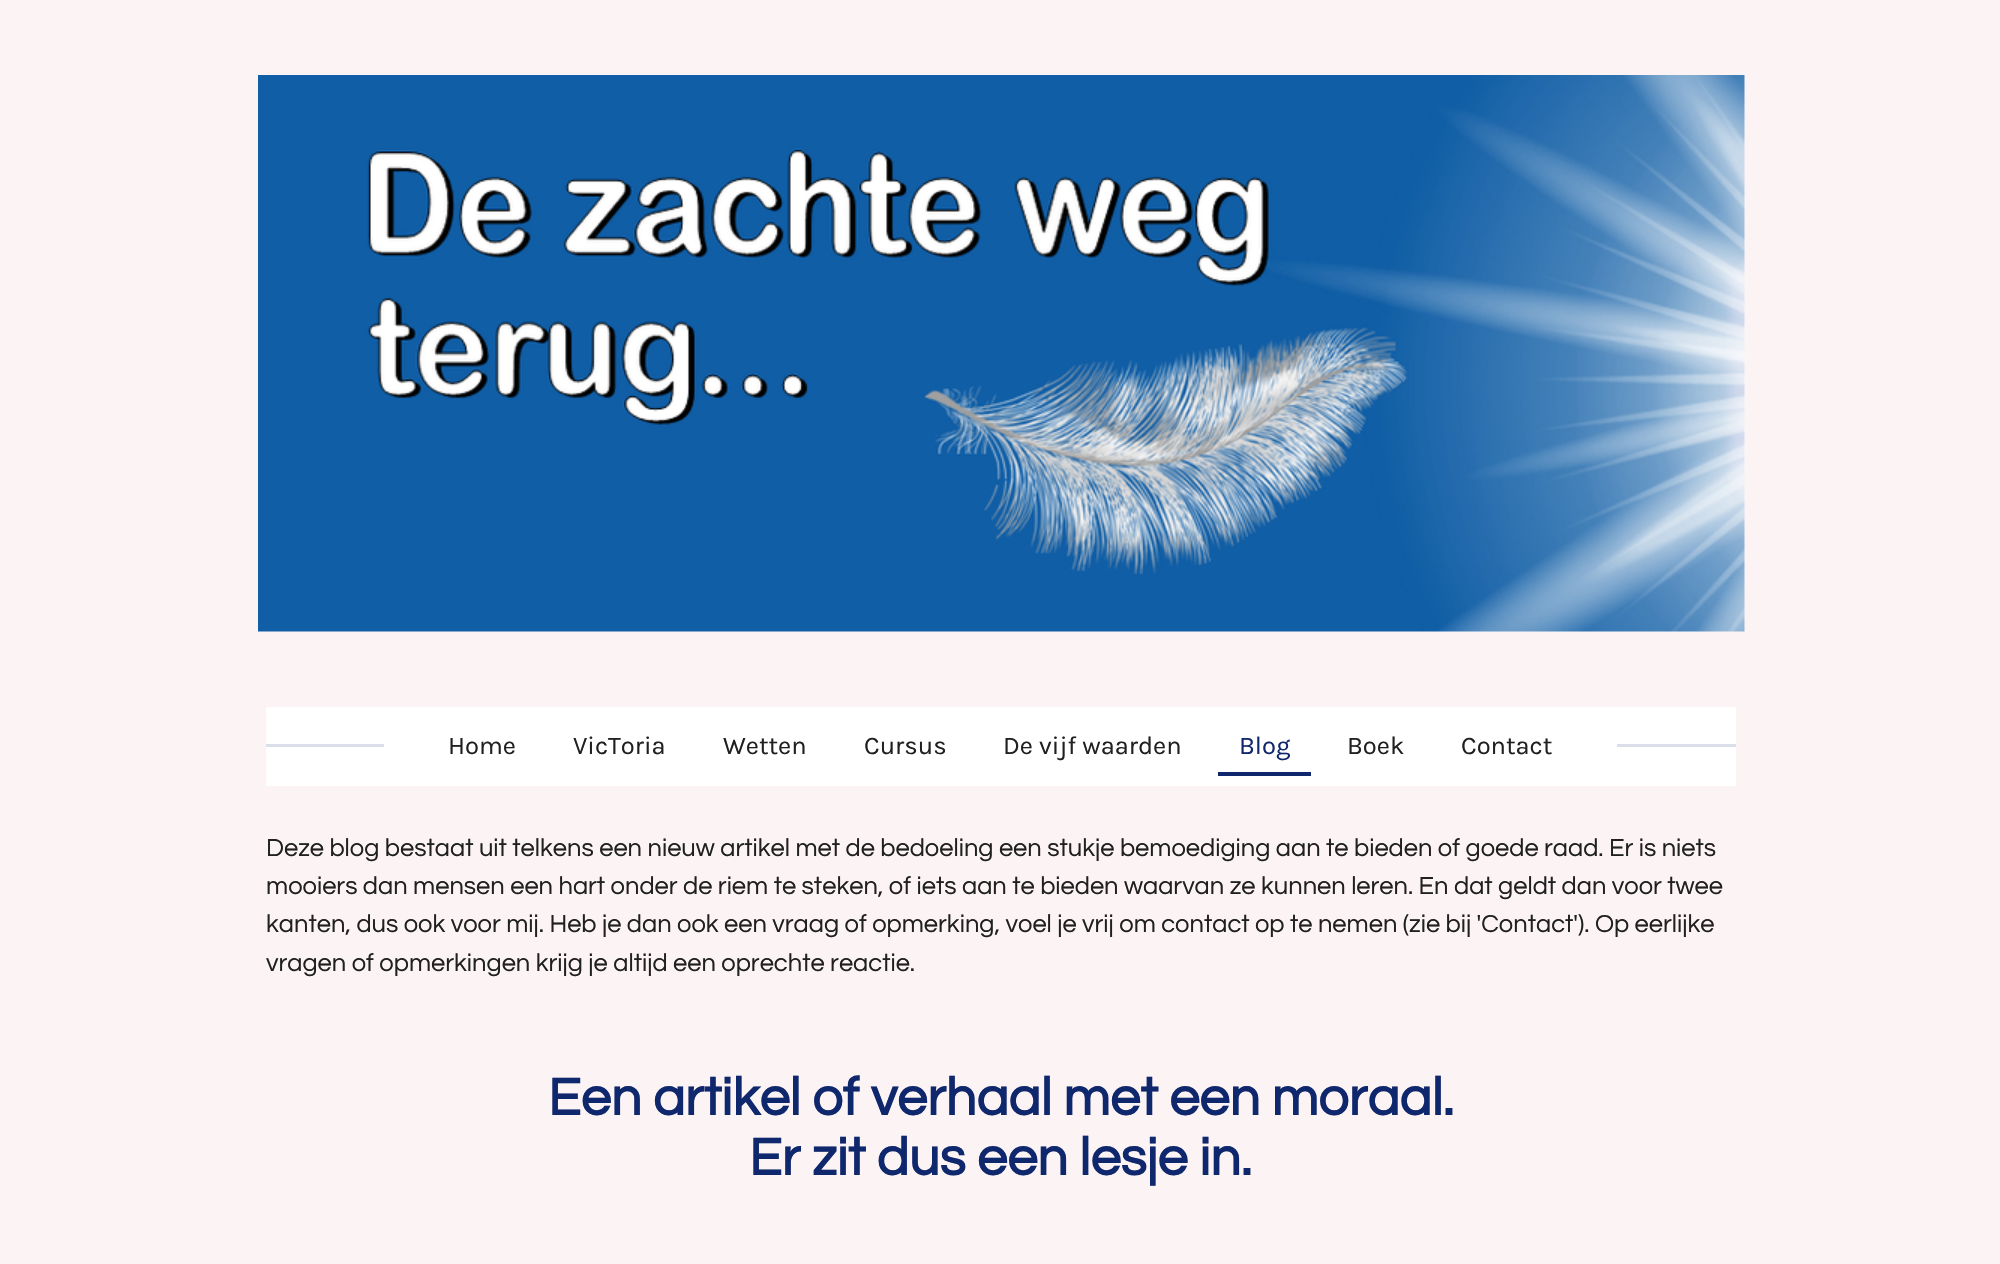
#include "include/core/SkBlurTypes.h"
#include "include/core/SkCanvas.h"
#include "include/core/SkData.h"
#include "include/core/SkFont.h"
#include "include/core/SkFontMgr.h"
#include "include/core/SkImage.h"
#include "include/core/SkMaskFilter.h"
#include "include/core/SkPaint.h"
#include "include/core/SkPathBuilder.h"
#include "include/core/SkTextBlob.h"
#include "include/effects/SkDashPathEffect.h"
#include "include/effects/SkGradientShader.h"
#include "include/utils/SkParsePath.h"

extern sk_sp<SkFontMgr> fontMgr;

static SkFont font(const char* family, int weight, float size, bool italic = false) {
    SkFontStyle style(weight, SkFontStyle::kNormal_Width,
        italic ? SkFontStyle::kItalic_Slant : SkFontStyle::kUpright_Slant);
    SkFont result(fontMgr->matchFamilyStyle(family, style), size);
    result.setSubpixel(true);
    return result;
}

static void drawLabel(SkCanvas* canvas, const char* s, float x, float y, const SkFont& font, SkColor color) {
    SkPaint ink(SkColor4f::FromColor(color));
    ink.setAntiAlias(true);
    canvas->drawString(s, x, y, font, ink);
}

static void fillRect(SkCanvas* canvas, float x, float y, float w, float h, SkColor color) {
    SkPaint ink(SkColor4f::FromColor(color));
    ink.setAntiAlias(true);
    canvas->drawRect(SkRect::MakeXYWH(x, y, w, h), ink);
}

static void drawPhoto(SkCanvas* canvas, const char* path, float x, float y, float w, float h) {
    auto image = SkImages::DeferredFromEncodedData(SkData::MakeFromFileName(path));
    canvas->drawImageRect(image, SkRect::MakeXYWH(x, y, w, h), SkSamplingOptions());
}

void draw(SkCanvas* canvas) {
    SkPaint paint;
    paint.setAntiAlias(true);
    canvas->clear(0xFFFCF4F4);
    drawPhoto(canvas, "assets/img1.png", 258, 75, 1487, 557);
    fillRect(canvas, 266, 707, 1470, 79, 0xFFFFFFFF);
    fillRect(canvas, 266, 744, 118, 3, 0xFFDBDFE9);
    SkFont font1 = font("Karla", 400, 25.5f);
    drawLabel(canvas, "Home", 448, 754, font1, 0xFF202020);
    drawLabel(canvas, "VicToria", 573, 754, font1, 0xFF202020);
    drawLabel(canvas, "Wetten", 723, 754, font1, 0xFF202020);
    drawLabel(canvas, "Cursus", 864, 754, font1, 0xFF202020);
    drawLabel(canvas, "De vijf waarden", 1003, 754, font1, 0xFF202020);
    fillRect(canvas, 1218, 772, 93, 4, 0xFF0F276C);
    drawLabel(canvas, "Blog", 1239, 754, font1, 0xFF0F276C);
    drawLabel(canvas, "Boek", 1347, 754, font1, 0xFF202020);
    drawLabel(canvas, "Contact", 1461, 754, font1, 0xFF202020);
    fillRect(canvas, 1617, 744, 119, 3, 0xFFDBDFE9);
    SkFont font2 = font("Questrial", 400, 25.5f);
    drawLabel(canvas, "Deze blog bestaat uit telkens een nieuw artikel met de bedoeling een stukje bemoediging aan te bieden of goede raad. Er is niets", 266, 856, font2, 0xFF202020);
    drawLabel(canvas, "mooiers dan mensen een hart onder de riem te steken, of iets aan te bieden waarvan ze kunnen leren. En dat geldt dan voor twee", 266, 894, font2, 0xFF202020);
    drawLabel(canvas, "kanten, dus ook voor mij. Heb je dan ook een vraag of opmerking, voel je vrij om contact op te nemen (zie bij 'Contact'). Op eerlijke", 266, 932, font2, 0xFF202020);
    drawLabel(canvas, "vragen of opmerkingen krijg je altijd een oprechte reactie.", 266, 971, font2, 0xFF202020);
    SkFont font3 = font("Questrial", 700, 54);
    drawLabel(canvas, "Een artikel of verhaal met een moraal.", 548, 1115, font3, 0xFF0F276C);
    drawLabel(canvas, "Er zit dus een lesje in.", 749, 1175, font3, 0xFF0F276C);
}
